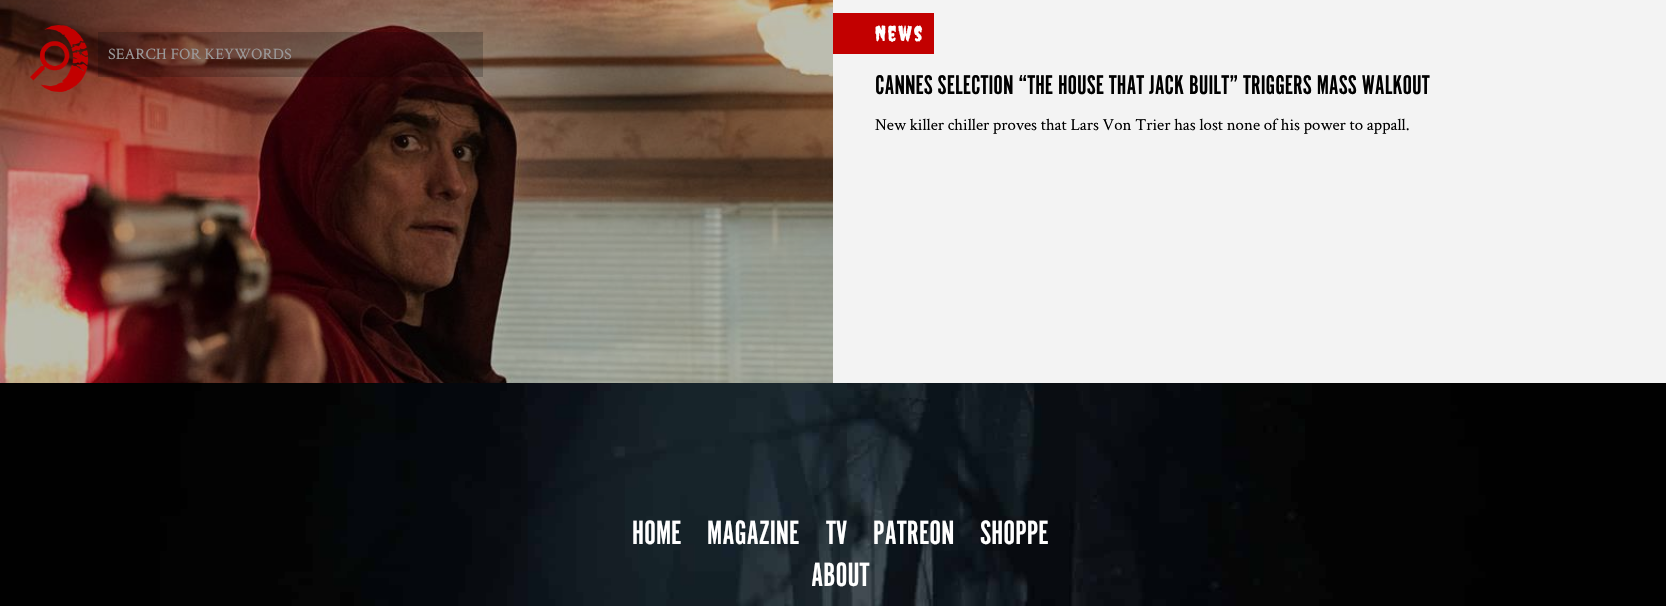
#include "include/core/SkBlurTypes.h"
#include "include/core/SkCanvas.h"
#include "include/core/SkData.h"
#include "include/core/SkFont.h"
#include "include/core/SkFontMgr.h"
#include "include/core/SkImage.h"
#include "include/core/SkMaskFilter.h"
#include "include/core/SkPaint.h"
#include "include/core/SkPathBuilder.h"
#include "include/core/SkTextBlob.h"
#include "include/effects/SkDashPathEffect.h"
#include "include/effects/SkGradientShader.h"
#include "include/utils/SkParsePath.h"

extern sk_sp<SkFontMgr> fontMgr;

static SkFont font(const char* family, int weight, float size, bool italic = false) {
    SkFontStyle style(weight, SkFontStyle::kNormal_Width,
        italic ? SkFontStyle::kItalic_Slant : SkFontStyle::kUpright_Slant);
    SkFont result(fontMgr->matchFamilyStyle(family, style), size);
    result.setSubpixel(true);
    return result;
}

static void drawLabel(SkCanvas* canvas, const char* s, float x, float y, const SkFont& font, SkColor color) {
    SkPaint ink(SkColor4f::FromColor(color));
    ink.setAntiAlias(true);
    canvas->drawString(s, x, y, font, ink);
}

static void drawTracked(SkCanvas* canvas, const char* s, float x, float y, const SkFont& font, const SkPaint& ink, float letter, float word) {
    std::vector<SkGlyphID> glyphs(font.countText(s, strlen(s), SkTextEncoding::kUTF8));
    std::vector<float> xs(glyphs.size());
    font.textToGlyphs(s, strlen(s), SkTextEncoding::kUTF8, glyphs);
    font.getXPos(glyphs, xs, x);
    float extra = 0;
    for (size_t i = 0; i < glyphs.size(); i++) {
        xs[i] += extra;
        extra += letter + word * (glyphs[i] == font.unicharToGlyph(' '));
    }
    canvas->drawTextBlob(SkTextBlob::MakeFromPosHGlyphs(glyphs, xs, y, font), 0, 0, ink);
}

static void fillRect(SkCanvas* canvas, float x, float y, float w, float h, SkColor color) {
    SkPaint ink(SkColor4f::FromColor(color));
    ink.setAntiAlias(true);
    canvas->drawRect(SkRect::MakeXYWH(x, y, w, h), ink);
}

static void drawPhoto(SkCanvas* canvas, const char* path, float x, float y, float w, float h) {
    auto image = SkImages::DeferredFromEncodedData(SkData::MakeFromFileName(path));
    canvas->drawImageRect(image, SkRect::MakeXYWH(x, y, w, h), SkSamplingOptions());
}

void draw(SkCanvas* canvas) {
    SkPaint paint;
    paint.setAntiAlias(true);
    canvas->clear(0xFFFFFFFF);
    drawPhoto(canvas, "assets/img2.png", 0, 0, 833, 383);
    drawPhoto(canvas, "assets/img1.png", 30, 25, 58, 67);
    fillRect(canvas, 98, 32, 385, 45, 0x33000000);
    SkFont font1 = font("Crimson Text", 400, 16);
    drawLabel(canvas, "SEARCH FOR KEYWORDS", 108, 59, font1, 0xFF9B9999);
    fillRect(canvas, 833, 0, 833, 383, 0xFFF3F3F3);
    fillRect(canvas, 833, 13, 101, 41, 0xFFC20000);
    SkFont font2 = font("Creepster", 400, 21);
    paint.setColor(0xFFFFFFFF);
    drawTracked(canvas, "News", 875, 41, font2, paint, 2, 0);
    SkFont font3 = font("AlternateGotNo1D", 400, 28);
    drawLabel(canvas, "CANNES SELECTION “THE HOUSE THAT JACK BUILT” TRIGGERS MASS WALKOUT", 875, 94, font3, 0xFF000000);
    SkFont font4 = font("Crimson Text", 400, 16.8f);
    drawLabel(canvas, "New killer chiller proves that Lars Von Trier has lost none of his power to appall.", 875, 130, font4, 0xFF000000);
    drawPhoto(canvas, "assets/img3.png", 0, 383, 1666, 223);
    SkFont font5 = font("AlternateGotNo1D", 400, 35);
    drawLabel(canvas, "HOME", 632, 544, font5, 0xFFFFFFFF);
    drawLabel(canvas, "MAGAZINE", 707, 544, font5, 0xFFFFFFFF);
    drawLabel(canvas, "TV", 826, 544, font5, 0xFFFFFFFF);
    drawLabel(canvas, "PATREON", 873, 544, font5, 0xFFFFFFFF);
    drawLabel(canvas, "SHOPPE", 980, 544, font5, 0xFFFFFFFF);
    drawLabel(canvas, "ABOUT", 811, 586, font5, 0xFFFFFFFF);
}
